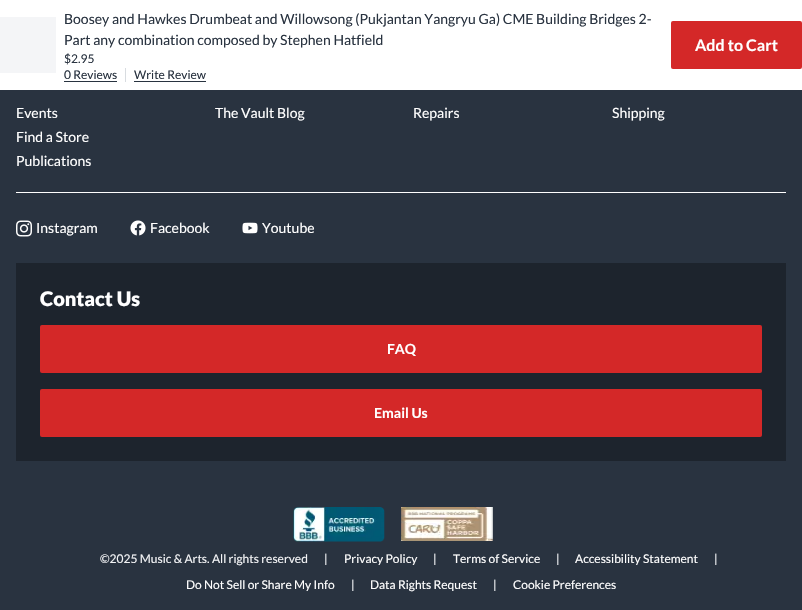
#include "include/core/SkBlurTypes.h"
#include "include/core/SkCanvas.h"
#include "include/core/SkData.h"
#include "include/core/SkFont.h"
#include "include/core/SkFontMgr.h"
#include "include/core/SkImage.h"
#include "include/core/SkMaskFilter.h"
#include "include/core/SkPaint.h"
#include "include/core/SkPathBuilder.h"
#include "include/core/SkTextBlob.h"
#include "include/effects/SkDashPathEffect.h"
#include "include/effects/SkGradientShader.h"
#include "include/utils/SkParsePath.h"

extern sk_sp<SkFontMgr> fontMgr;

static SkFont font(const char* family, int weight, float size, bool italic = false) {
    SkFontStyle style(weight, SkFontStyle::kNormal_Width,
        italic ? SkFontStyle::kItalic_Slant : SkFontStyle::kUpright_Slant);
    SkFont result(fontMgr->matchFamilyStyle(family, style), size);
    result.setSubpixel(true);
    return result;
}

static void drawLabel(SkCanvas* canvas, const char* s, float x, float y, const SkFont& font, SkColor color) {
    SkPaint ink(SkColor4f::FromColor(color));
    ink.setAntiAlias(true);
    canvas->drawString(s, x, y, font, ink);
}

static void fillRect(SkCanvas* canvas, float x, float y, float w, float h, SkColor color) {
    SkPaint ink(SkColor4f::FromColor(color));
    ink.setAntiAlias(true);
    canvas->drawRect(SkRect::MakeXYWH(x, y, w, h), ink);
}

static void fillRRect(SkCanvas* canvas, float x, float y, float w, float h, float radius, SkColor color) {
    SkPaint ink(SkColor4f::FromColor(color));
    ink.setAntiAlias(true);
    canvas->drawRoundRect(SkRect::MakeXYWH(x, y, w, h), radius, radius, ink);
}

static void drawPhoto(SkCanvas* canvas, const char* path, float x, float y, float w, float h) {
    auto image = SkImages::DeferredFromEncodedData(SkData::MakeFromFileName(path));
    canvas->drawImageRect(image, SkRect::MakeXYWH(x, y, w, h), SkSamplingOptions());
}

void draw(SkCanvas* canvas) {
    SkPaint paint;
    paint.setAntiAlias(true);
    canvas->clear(0xFF293340);
    fillRect(canvas, 0, 0, 802, 90, 0xFFFFFFFF);
    fillRect(canvas, 0, 17, 56, 56, 0xFFF4F5F7);
    SkFont font1 = font("Lato", 400, 14);
    drawLabel(canvas, "Boosey and Hawkes Drumbeat and Willowsong (Pukjantan Yangryu Ga) CME Building Bridges 2-", 64, 24, font1, 0xFF293340);
    drawLabel(canvas, "Part any combination composed by Stephen Hatfield", 64, 45, font1, 0xFF293340);
    SkFont font2 = font("Lato", 400, 12);
    drawLabel(canvas, "$2.95", 64, 63, font2, 0xFF293340);
    drawLabel(canvas, "0 Reviews", 64, 79, font2, 0xFF293340);
    fillRect(canvas, 64, 81, 53, 1, 0xFF293340);
    fillRect(canvas, 125, 68, 1, 14, 0xFFD8DCE0);
    drawLabel(canvas, "Write Review", 134, 79, font2, 0xFF293340);
    fillRect(canvas, 134, 81, 72, 1, 0xFF293340);
    fillRRect(canvas, 671, 21, 131, 48, 2, 0xFFD42828);
    SkFont font3 = font("Lato", 700, 16);
    drawLabel(canvas, "Add to Cart", 695, 51, font3, 0xFFFFFFFF);
    drawLabel(canvas, "Events", 16, 118, font1, 0xFFFFFFFF);
    drawLabel(canvas, "Find a Store", 16, 142, font1, 0xFFFFFFFF);
    drawLabel(canvas, "Publications", 16, 166, font1, 0xFFFFFFFF);
    drawLabel(canvas, "The Vault Blog", 215, 118, font1, 0xFFFFFFFF);
    drawLabel(canvas, "Repairs", 413, 118, font1, 0xFFFFFFFF);
    drawLabel(canvas, "Shipping", 612, 118, font1, 0xFFFFFFFF);
    fillRect(canvas, 16, 192, 770, 1, 0xFFFFFFFF);
    drawPhoto(canvas, "assets/img1.png", 16, 220, 16, 17);
    drawLabel(canvas, "Instagram", 36, 233, font1, 0xFFFFFFFF);
    drawPhoto(canvas, "assets/img2.png", 130, 220, 16, 16);
    drawLabel(canvas, "Facebook", 150, 233, font1, 0xFFFFFFFF);
    drawPhoto(canvas, "assets/img3.png", 242, 222, 16, 12);
    drawLabel(canvas, "Youtube", 262, 233, font1, 0xFFFFFFFF);
    fillRect(canvas, 16, 263, 770, 198, 0xFF1D242D);
    SkFont font4 = font("Lato", 900, 20);
    drawLabel(canvas, "Contact Us", 40, 306, font4, 0xFFFFFFFF);
    fillRRect(canvas, 40, 325, 722, 48, 2, 0xFFD42828);
    SkFont font5 = font("Lato", 700, 14);
    drawLabel(canvas, "FAQ", 387, 354, font5, 0xFFFFFFFF);
    fillRRect(canvas, 40, 389, 722, 48, 2, 0xFFD42828);
    drawLabel(canvas, "Email Us", 374, 418, font5, 0xFFFFFFFF);
    drawPhoto(canvas, "assets/img4.png", 293, 507, 92, 35);
    drawPhoto(canvas, "assets/img5.png", 401, 507, 92, 34);
    drawLabel(canvas, "©2025 Music & Arts. All rights reserved", 100, 563, font2, 0xFFF3F4F6);
    drawLabel(canvas, "|", 324, 563, font2, 0xFFF3F4F6);
    drawLabel(canvas, "Privacy Policy", 344, 563, font2, 0xFFFFFFFF);
    drawLabel(canvas, "|", 433, 563, font2, 0xFFF3F4F6);
    drawLabel(canvas, "Terms of Service", 453, 563, font2, 0xFFFFFFFF);
    drawLabel(canvas, "|", 556, 563, font2, 0xFFF3F4F6);
    drawLabel(canvas, "Accessibility Statement", 575, 563, font2, 0xFFFFFFFF);
    drawLabel(canvas, "|", 714, 563, font2, 0xFFF3F4F6);
    drawLabel(canvas, "Do Not Sell or Share My Info", 186, 589, font2, 0xFFFFFFFF);
    drawLabel(canvas, "|", 351, 589, font2, 0xFFF3F4F6);
    drawLabel(canvas, "Data Rights Request", 370, 589, font2, 0xFFFFFFFF);
    drawLabel(canvas, "|", 493, 589, font2, 0xFFF3F4F6);
    drawLabel(canvas, "Cookie Preferences", 513, 589, font2, 0xFFFFFFFF);
}
